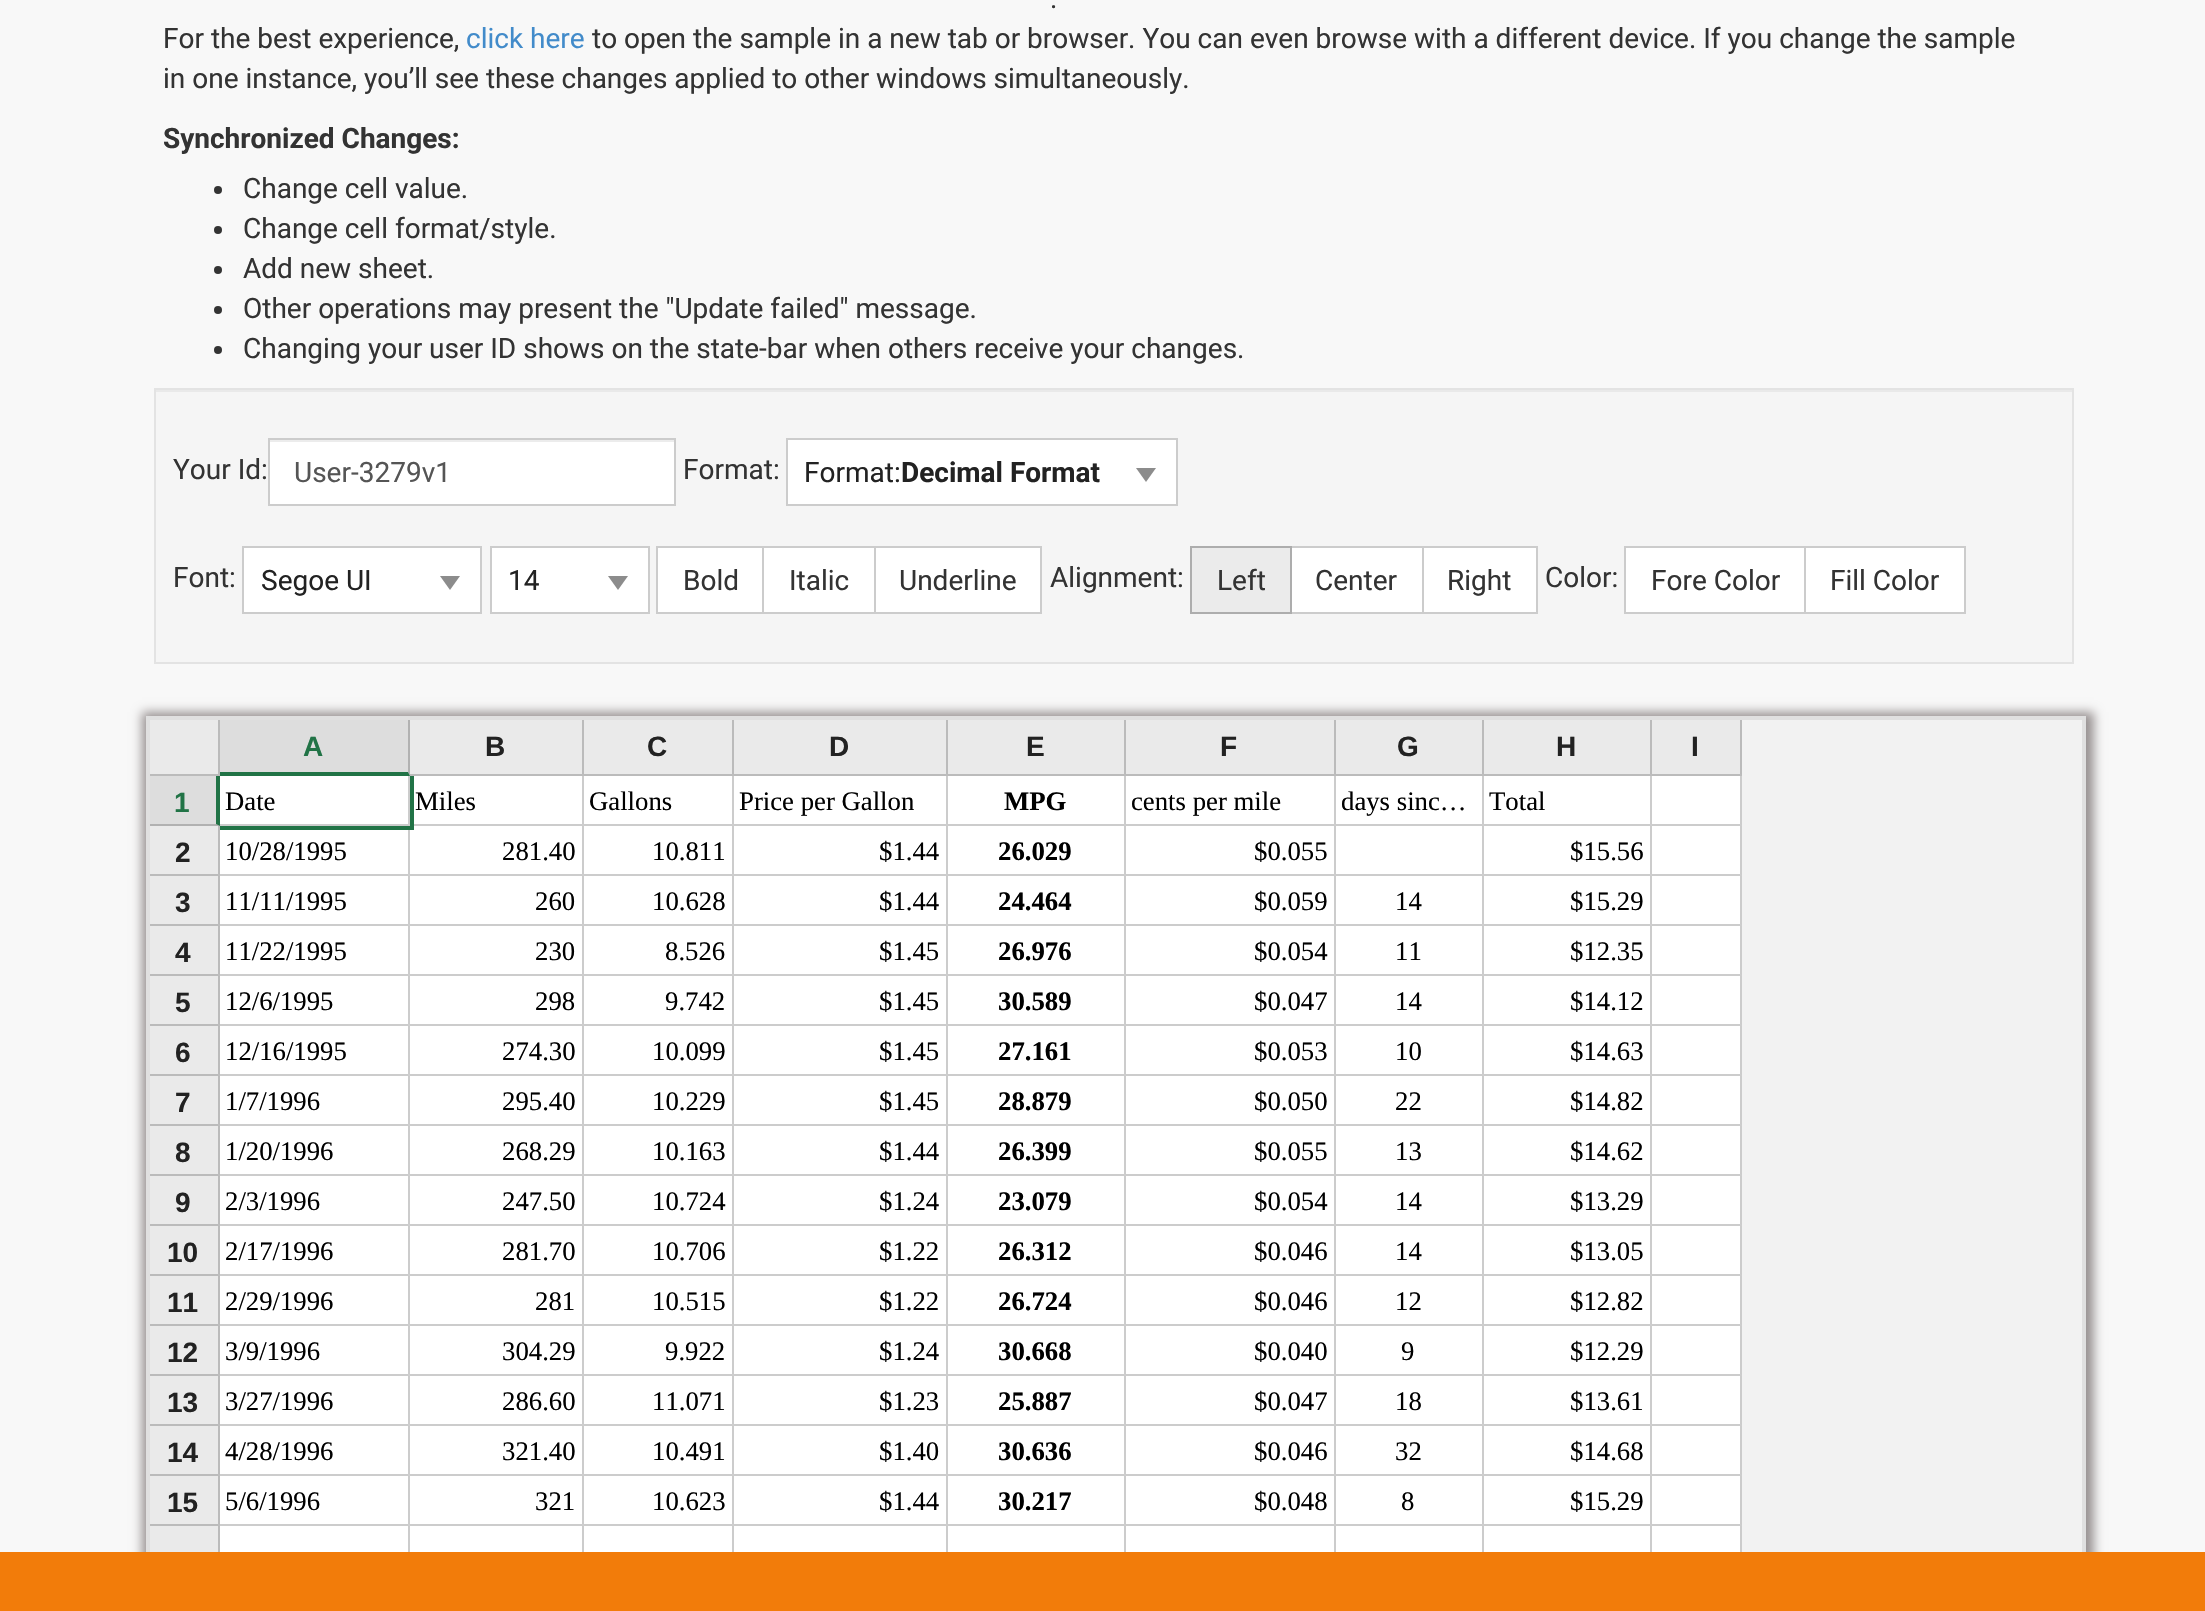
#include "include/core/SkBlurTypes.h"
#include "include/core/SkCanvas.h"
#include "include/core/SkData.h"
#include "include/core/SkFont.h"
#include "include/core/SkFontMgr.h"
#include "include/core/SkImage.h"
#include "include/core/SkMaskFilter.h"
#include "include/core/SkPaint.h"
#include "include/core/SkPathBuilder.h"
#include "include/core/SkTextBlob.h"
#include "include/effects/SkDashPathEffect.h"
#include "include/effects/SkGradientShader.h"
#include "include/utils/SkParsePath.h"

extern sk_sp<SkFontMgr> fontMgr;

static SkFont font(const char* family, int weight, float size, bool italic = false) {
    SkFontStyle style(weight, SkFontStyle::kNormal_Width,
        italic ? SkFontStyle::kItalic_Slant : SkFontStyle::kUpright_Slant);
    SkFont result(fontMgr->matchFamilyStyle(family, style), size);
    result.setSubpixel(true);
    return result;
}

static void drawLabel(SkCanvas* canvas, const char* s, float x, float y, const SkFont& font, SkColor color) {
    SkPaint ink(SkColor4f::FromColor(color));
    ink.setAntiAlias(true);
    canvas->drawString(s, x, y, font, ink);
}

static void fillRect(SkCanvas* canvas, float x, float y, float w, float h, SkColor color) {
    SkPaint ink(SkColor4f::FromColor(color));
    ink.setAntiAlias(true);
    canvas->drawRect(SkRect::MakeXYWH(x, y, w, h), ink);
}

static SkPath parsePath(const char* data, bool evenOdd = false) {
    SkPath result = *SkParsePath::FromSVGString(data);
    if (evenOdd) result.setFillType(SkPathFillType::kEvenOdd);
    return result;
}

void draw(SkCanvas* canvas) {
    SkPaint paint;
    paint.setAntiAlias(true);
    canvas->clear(0xFFF8F8F8);
    SkFont font1 = font("Roboto", 400, 28);
    drawLabel(canvas, ".", 1050, 8, font1, 0xFF333333);
    drawLabel(canvas, "For the best experience,", 163, 48, font1, 0xFF333333);
    drawLabel(canvas, "click here", 466, 48, font1, 0xFF428BCA);
    drawLabel(canvas, "to open the sample in a new tab or browser. You can even browse with a different device. If you change the sample", 592, 48, font1, 0xFF333333);
    drawLabel(canvas, "in one instance, you’ll see these changes applied to other windows simultaneously.", 163, 88, font1, 0xFF333333);
    SkFont font2 = font("Roboto", 700, 28);
    drawLabel(canvas, "Synchronized Changes:", 163, 148, font2, 0xFF333333);
    paint.setColor(0xFF333333);
    canvas->drawCircle(218, 190, 4, paint);
    drawLabel(canvas, "Change cell value.", 243, 198, font1, 0xFF333333);
    canvas->drawCircle(218, 230, 4, paint);
    drawLabel(canvas, "Change cell format/style.", 243, 238, font1, 0xFF333333);
    canvas->drawCircle(218, 270, 4, paint);
    drawLabel(canvas, "Add new sheet.", 243, 278, font1, 0xFF333333);
    canvas->drawCircle(218, 310, 4, paint);
    drawLabel(canvas, "Other operations may present the \"Update failed\" message.", 243, 318, font1, 0xFF333333);
    canvas->drawCircle(218, 350, 4, paint);
    drawLabel(canvas, "Changing your user ID shows on the state-bar when others receive your changes.", 243, 358, font1, 0xFF333333);
    fillRect(canvas, 156, 392, 1916, 270, 0xFFF5F5F5);
    fillRect(canvas, 156, 390, 1916, 2, 0xFFE9E9E9);
    paint.setStroke(true);
    paint.setStrokeWidth(2);
    paint.setColor(0xFFE3E3E3);
    canvas->drawRect(SkRect::MakeXYWH(155, 389, 1918, 274), paint);
    drawLabel(canvas, "Your Id:", 173, 479, font1, 0xFF333333);
    fillRect(canvas, 270, 442, 404, 62, 0xFFFFFFFF);
    fillRect(canvas, 270, 440, 404, 2, 0xFFECECEC);
    paint.setColor(0xFFCCCCCC);
    canvas->drawRect(SkRect::MakeXYWH(269, 439, 406, 66), paint);
    drawLabel(canvas, "User-3279v1", 294, 482, font1, 0xFF555555);
    drawLabel(canvas, "Format:", 683, 479, font1, 0xFF333333);
    paint.setStroke(false);
    paint.setColor(0xFFFFFFFF);
    canvas->drawRect(SkRect::MakeXYWH(787, 439, 390, 66), paint);
    paint.setStroke(true);
    paint.setColor(0xFFCCCCCC);
    canvas->drawRect(SkRect::MakeXYWH(787, 439, 390, 66), paint);
    drawLabel(canvas, "Format:", 804, 482, font1, 0xFF222222);
    drawLabel(canvas, "Decimal Format", 901, 482, font2, 0xFF222222);
    paint.setStroke(false);
    paint.setColor(0xFF8C8C8C);
    canvas->drawPath(parsePath("M1136 468H1156L1146 482Z"), paint);
    drawLabel(canvas, "Font:", 173, 587, font1, 0xFF333333);
    paint.setColor(0xFFFFFFFF);
    canvas->drawRect(SkRect::MakeXYWH(243, 547, 238, 66), paint);
    paint.setStroke(true);
    paint.setColor(0xFFCCCCCC);
    canvas->drawRect(SkRect::MakeXYWH(243, 547, 238, 66), paint);
    drawLabel(canvas, "Segoe UI", 261, 590, font1, 0xFF222222);
    paint.setStroke(false);
    paint.setColor(0xFF8C8C8C);
    canvas->drawPath(parsePath("M440 576H460L450 590Z"), paint);
    paint.setColor(0xFFFFFFFF);
    canvas->drawRect(SkRect::MakeXYWH(491, 547, 158, 66), paint);
    paint.setStroke(true);
    paint.setColor(0xFFCCCCCC);
    canvas->drawRect(SkRect::MakeXYWH(491, 547, 158, 66), paint);
    drawLabel(canvas, "14", 508, 590, font1, 0xFF222222);
    paint.setStroke(false);
    paint.setColor(0xFF8C8C8C);
    canvas->drawPath(parsePath("M608 576H628L618 590Z"), paint);
    paint.setColor(0xFFFFFFFF);
    canvas->drawRect(SkRect::MakeXYWH(657, 547, 106, 66), paint);
    paint.setStroke(true);
    paint.setColor(0xFFCCCCCC);
    canvas->drawRect(SkRect::MakeXYWH(657, 547, 106, 66), paint);
    drawLabel(canvas, "Bold", 683, 590, font1, 0xFF333333);
    paint.setStroke(false);
    paint.setColor(0xFFFFFFFF);
    canvas->drawRect(SkRect::MakeXYWH(763, 547, 112, 66), paint);
    paint.setStroke(true);
    paint.setColor(0xFFCCCCCC);
    canvas->drawRect(SkRect::MakeXYWH(763, 547, 112, 66), paint);
    drawLabel(canvas, "Italic", 789, 590, font1, 0xFF333333);
    paint.setStroke(false);
    paint.setColor(0xFFFFFFFF);
    canvas->drawRect(SkRect::MakeXYWH(875, 547, 166, 66), paint);
    paint.setStroke(true);
    paint.setColor(0xFFCCCCCC);
    canvas->drawRect(SkRect::MakeXYWH(875, 547, 166, 66), paint);
    drawLabel(canvas, "Underline", 899, 590, font1, 0xFF333333);
    drawLabel(canvas, "Alignment:", 1050, 587, font1, 0xFF333333);
    paint.setStroke(false);
    paint.setColor(0xFFFFFFFF);
    canvas->drawRect(SkRect::MakeXYWH(1291, 547, 132, 66), paint);
    paint.setStroke(true);
    paint.setColor(0xFFCCCCCC);
    canvas->drawRect(SkRect::MakeXYWH(1291, 547, 132, 66), paint);
    paint.setStroke(false);
    paint.setColor(0xFFEBEBEB);
    canvas->drawRect(SkRect::MakeXYWH(1191, 547, 100, 66), paint);
    paint.setStroke(true);
    paint.setColor(0xFFADADAD);
    canvas->drawRect(SkRect::MakeXYWH(1191, 547, 100, 66), paint);
    drawLabel(canvas, "Left", 1217, 590, font1, 0xFF333333);
    drawLabel(canvas, "Center", 1315, 590, font1, 0xFF333333);
    paint.setStroke(false);
    paint.setColor(0xFFFFFFFF);
    canvas->drawRect(SkRect::MakeXYWH(1423, 547, 114, 66), paint);
    paint.setStroke(true);
    paint.setColor(0xFFCCCCCC);
    canvas->drawRect(SkRect::MakeXYWH(1423, 547, 114, 66), paint);
    drawLabel(canvas, "Right", 1447, 590, font1, 0xFF333333);
    drawLabel(canvas, "Color:", 1545, 587, font1, 0xFF333333);
    paint.setStroke(false);
    paint.setColor(0xFFFFFFFF);
    canvas->drawRect(SkRect::MakeXYWH(1625, 547, 180, 66), paint);
    paint.setStroke(true);
    paint.setColor(0xFFCCCCCC);
    canvas->drawRect(SkRect::MakeXYWH(1625, 547, 180, 66), paint);
    drawLabel(canvas, "Fore Color", 1651, 590, font1, 0xFF333333);
    paint.setStroke(false);
    paint.setColor(0xFFFFFFFF);
    canvas->drawRect(SkRect::MakeXYWH(1805, 547, 160, 66), paint);
    paint.setStroke(true);
    paint.setColor(0xFFCCCCCC);
    canvas->drawRect(SkRect::MakeXYWH(1805, 547, 160, 66), paint);
    drawLabel(canvas, "Fill Color", 1830, 590, font1, 0xFF333333);
    paint.setStroke(false);
    paint.setColor(0xFF989292);
    paint.setMaskFilter(SkMaskFilter::MakeBlur(kNormal_SkBlurStyle, 5));
    canvas->drawRect(SkRect::MakeXYWH(142, 712, 1952, 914), paint);
    paint.setMaskFilter(nullptr);
    paint.setStroke(true);
    paint.setStrokeWidth(4);
    paint.setColor(0xFFE0E0E0);
    canvas->drawRect(SkRect::MakeXYWH(148, 718, 1936, 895), paint);
    fillRect(canvas, 220, 776, 1522, 776, 0xFFFFFFFF);
    paint.setStroke(false);
    paint.setColor(0xFFCCCCCC);
    canvas->drawPath(parsePath("M410 776V826L408 824V776Z"), paint);
    paint.setColor(0x33000000);
    canvas->drawPath(parsePath("M410 826H220V824H408Z"), paint);
    paint.setColor(0xFFCCCCCC);
    canvas->drawPath(parsePath("M584 776V826L582 824V776Z"), paint);
    paint.setColor(0x33000000);
    canvas->drawPath(parsePath("M584 826H410V824H582Z"), paint);
    paint.setColor(0xFFCCCCCC);
    canvas->drawPath(parsePath("M410 826V876L408 874V826Z"), paint);
    paint.setStroke(true);
    paint.setColor(0xFF217346);
    canvas->drawRect(SkRect::MakeXYWH(218, 774, 194, 54), paint);
    fillRect(canvas, 150, 720, 70, 56, 0xFFEAEAEA);
    paint.setStroke(false);
    paint.setColor(0xFFBBBBBB);
    canvas->drawPath(parsePath("M220 720V776L218 774V720Z"), paint);
    paint.setColor(0x33000000);
    canvas->drawPath(parsePath("M220 776H150V774H218Z"), paint);
    fillRect(canvas, 220, 720, 190, 56, 0xFFDDDDDD);
    paint.setColor(0xFFB1B1B1);
    canvas->drawPath(parsePath("M410 720V776L408 772V720Z"), paint);
    paint.setColor(0xFF217346);
    canvas->drawPath(parsePath("M410 776H220V772H408Z"), paint);
    SkFont font3 = font("Liberation Sans", 700, 28);
    drawLabel(canvas, "A", 303, 756, font3, 0xFF217346);
    fillRect(canvas, 410, 720, 1332, 56, 0xFFEAEAEA);
    paint.setColor(0xFFBBBBBB);
    canvas->drawPath(parsePath("M584 720V776L582 774V720Z"), paint);
    paint.setColor(0x33000000);
    canvas->drawPath(parsePath("M584 776H410V774H582Z"), paint);
    drawLabel(canvas, "B", 485, 756, font3, 0xFF222222);
    paint.setColor(0xFFBBBBBB);
    canvas->drawPath(parsePath("M734 720V776L732 774V720Z"), paint);
    paint.setColor(0x33000000);
    canvas->drawPath(parsePath("M734 776H584V774H732Z"), paint);
    drawLabel(canvas, "C", 647, 756, font3, 0xFF222222);
    paint.setColor(0xFFBBBBBB);
    canvas->drawPath(parsePath("M948 720V776L946 774V720Z"), paint);
    paint.setColor(0x33000000);
    canvas->drawPath(parsePath("M948 776H734V774H946Z"), paint);
    drawLabel(canvas, "D", 829, 756, font3, 0xFF222222);
    paint.setColor(0xFFBBBBBB);
    canvas->drawPath(parsePath("M1126 720V776L1124 774V720Z"), paint);
    paint.setColor(0x33000000);
    canvas->drawPath(parsePath("M1126 776H948V774H1124Z"), paint);
    drawLabel(canvas, "E", 1026, 756, font3, 0xFF222222);
    paint.setColor(0xFFBBBBBB);
    canvas->drawPath(parsePath("M1336 720V776L1334 774V720Z"), paint);
    paint.setColor(0x33000000);
    canvas->drawPath(parsePath("M1336 776H1126V774H1334Z"), paint);
    drawLabel(canvas, "F", 1220, 756, font3, 0xFF222222);
    paint.setColor(0xFFBBBBBB);
    canvas->drawPath(parsePath("M1484 720V776L1482 774V720Z"), paint);
    paint.setColor(0x33000000);
    canvas->drawPath(parsePath("M1484 776H1336V774H1482Z"), paint);
    drawLabel(canvas, "G", 1397, 756, font3, 0xFF222222);
    paint.setColor(0xFFBBBBBB);
    canvas->drawPath(parsePath("M1652 720V776L1650 774V720Z"), paint);
    paint.setColor(0x33000000);
    canvas->drawPath(parsePath("M1652 776H1484V774H1650Z"), paint);
    drawLabel(canvas, "H", 1556, 756, font3, 0xFF222222);
    paint.setColor(0xFFBBBBBB);
    canvas->drawPath(parsePath("M1742 720V776L1740 774V720Z"), paint);
    paint.setColor(0x33000000);
    canvas->drawPath(parsePath("M1742 776H1652V774H1740Z"), paint);
    drawLabel(canvas, "I", 1691, 756, font3, 0xFF222222);
    fillRect(canvas, 150, 776, 70, 50, 0xFFDDDDDD);
    paint.setColor(0xFF217346);
    canvas->drawPath(parsePath("M220 776V826L216 824V776Z"), paint);
    paint.setColor(0x33000000);
    canvas->drawPath(parsePath("M220 826H150V824H216Z"), paint);
    drawLabel(canvas, "1", 174, 812, font3, 0xFF217346);
    fillRect(canvas, 150, 826, 70, 700, 0xFFEAEAEA);
    paint.setColor(0xFFBBBBBB);
    canvas->drawPath(parsePath("M220 826V876L218 874V826Z"), paint);
    paint.setColor(0x33000000);
    canvas->drawPath(parsePath("M220 876H150V874H218Z"), paint);
    drawLabel(canvas, "2", 175, 862, font3, 0xFF222222);
    paint.setColor(0xFFBBBBBB);
    canvas->drawPath(parsePath("M220 876V926L218 924V876Z"), paint);
    paint.setColor(0x33000000);
    canvas->drawPath(parsePath("M220 926H150V924H218Z"), paint);
    drawLabel(canvas, "3", 175, 912, font3, 0xFF222222);
    paint.setColor(0xFFBBBBBB);
    canvas->drawPath(parsePath("M220 926V976L218 974V926Z"), paint);
    paint.setColor(0x33000000);
    canvas->drawPath(parsePath("M220 976H150V974H218Z"), paint);
    drawLabel(canvas, "4", 175, 962, font3, 0xFF222222);
    paint.setColor(0xFFBBBBBB);
    canvas->drawPath(parsePath("M220 976V1026L218 1024V976Z"), paint);
    paint.setColor(0x33000000);
    canvas->drawPath(parsePath("M220 1026H150V1024H218Z"), paint);
    drawLabel(canvas, "5", 175, 1012, font3, 0xFF222222);
    paint.setColor(0xFFBBBBBB);
    canvas->drawPath(parsePath("M220 1026V1076L218 1074V1026Z"), paint);
    paint.setColor(0x33000000);
    canvas->drawPath(parsePath("M220 1076H150V1074H218Z"), paint);
    drawLabel(canvas, "6", 175, 1062, font3, 0xFF222222);
    paint.setColor(0xFFBBBBBB);
    canvas->drawPath(parsePath("M220 1076V1126L218 1124V1076Z"), paint);
    paint.setColor(0x33000000);
    canvas->drawPath(parsePath("M220 1126H150V1124H218Z"), paint);
    drawLabel(canvas, "7", 175, 1112, font3, 0xFF222222);
    paint.setColor(0xFFBBBBBB);
    canvas->drawPath(parsePath("M220 1126V1176L218 1174V1126Z"), paint);
    paint.setColor(0x33000000);
    canvas->drawPath(parsePath("M220 1176H150V1174H218Z"), paint);
    drawLabel(canvas, "8", 175, 1162, font3, 0xFF222222);
    paint.setColor(0xFFBBBBBB);
    canvas->drawPath(parsePath("M220 1176V1226L218 1224V1176Z"), paint);
    paint.setColor(0x33000000);
    canvas->drawPath(parsePath("M220 1226H150V1224H218Z"), paint);
    drawLabel(canvas, "9", 175, 1212, font3, 0xFF222222);
    paint.setColor(0xFFBBBBBB);
    canvas->drawPath(parsePath("M220 1226V1276L218 1274V1226Z"), paint);
    paint.setColor(0x33000000);
    canvas->drawPath(parsePath("M220 1276H150V1274H218Z"), paint);
    drawLabel(canvas, "10", 167, 1262, font3, 0xFF222222);
    paint.setColor(0xFFBBBBBB);
    canvas->drawPath(parsePath("M220 1276V1326L218 1324V1276Z"), paint);
    paint.setColor(0x33000000);
    canvas->drawPath(parsePath("M220 1326H150V1324H218Z"), paint);
    drawLabel(canvas, "11", 167, 1312, font3, 0xFF222222);
    paint.setColor(0xFFBBBBBB);
    canvas->drawPath(parsePath("M220 1326V1376L218 1374V1326Z"), paint);
    paint.setColor(0x33000000);
    canvas->drawPath(parsePath("M220 1376H150V1374H218Z"), paint);
    drawLabel(canvas, "12", 167, 1362, font3, 0xFF222222);
    paint.setColor(0xFFBBBBBB);
    canvas->drawPath(parsePath("M220 1376V1426L218 1424V1376Z"), paint);
    paint.setColor(0x33000000);
    canvas->drawPath(parsePath("M220 1426H150V1424H218Z"), paint);
    drawLabel(canvas, "13", 167, 1412, font3, 0xFF222222);
    paint.setColor(0xFFBBBBBB);
    canvas->drawPath(parsePath("M220 1426V1476L218 1474V1426Z"), paint);
    paint.setColor(0x33000000);
    canvas->drawPath(parsePath("M220 1476H150V1474H218Z"), paint);
    drawLabel(canvas, "14", 167, 1462, font3, 0xFF222222);
    paint.setColor(0xFFBBBBBB);
    canvas->drawPath(parsePath("M220 1476V1526L218 1524V1476Z"), paint);
    paint.setColor(0x33000000);
    canvas->drawPath(parsePath("M220 1526H150V1524H218Z"), paint);
    drawLabel(canvas, "15", 167, 1512, font3, 0xFF222222);
    fillRect(canvas, 150, 1526, 68, 26, 0xFFEAEAEA);
    paint.setColor(0xFFBBBBBB);
    canvas->drawPath(parsePath("M220 1526V1576L218 1574V1526Z"), paint);
    fillRect(canvas, 1742, 720, 340, 832, 0xFFF2F2F2);
    SkFont font4 = font("Liberation Serif", 400, 26.75f);
    drawLabel(canvas, "Date", 225, 810, font4, 0xFF000000);
    drawLabel(canvas, "Miles", 415, 810, font4, 0xFF000000);
    paint.setColor(0xFFCCCCCC);
    canvas->drawPath(parsePath("M734 776V826L732 824V776Z"), paint);
    paint.setColor(0x33000000);
    canvas->drawPath(parsePath("M734 826H584V824H732Z"), paint);
    drawLabel(canvas, "Gallons", 589, 810, font4, 0xFF000000);
    paint.setColor(0xFFCCCCCC);
    canvas->drawPath(parsePath("M948 776V826L946 824V776Z"), paint);
    paint.setColor(0x33000000);
    canvas->drawPath(parsePath("M948 826H734V824H946Z"), paint);
    drawLabel(canvas, "Price per Gallon", 739, 810, font4, 0xFF000000);
    paint.setColor(0xFFCCCCCC);
    canvas->drawPath(parsePath("M1126 776V826L1124 824V776Z"), paint);
    paint.setColor(0x33000000);
    canvas->drawPath(parsePath("M1126 826H948V824H1124Z"), paint);
    SkFont font5 = font("Liberation Serif", 700, 26.75f);
    drawLabel(canvas, "MPG", 1004, 810, font5, 0xFF000000);
    paint.setColor(0xFFCCCCCC);
    canvas->drawPath(parsePath("M1336 776V826L1334 824V776Z"), paint);
    paint.setColor(0x33000000);
    canvas->drawPath(parsePath("M1336 826H1126V824H1334Z"), paint);
    drawLabel(canvas, "cents per mile", 1131, 810, font4, 0xFF000000);
    paint.setColor(0xFFCCCCCC);
    canvas->drawPath(parsePath("M1484 776V826L1482 824V776Z"), paint);
    paint.setColor(0x33000000);
    canvas->drawPath(parsePath("M1484 826H1336V824H1482Z"), paint);
    drawLabel(canvas, "days sinc…", 1341, 810, font4, 0xFF000000);
    paint.setColor(0xFFCCCCCC);
    canvas->drawPath(parsePath("M1652 776V826L1650 824V776Z"), paint);
    paint.setColor(0x33000000);
    canvas->drawPath(parsePath("M1652 826H1484V824H1650Z"), paint);
    drawLabel(canvas, "Total", 1489, 810, font4, 0xFF000000);
    paint.setColor(0xFFCCCCCC);
    canvas->drawPath(parsePath("M1742 776V826L1740 824V776Z"), paint);
    paint.setColor(0x33000000);
    canvas->drawPath(parsePath("M1742 826H1652V824H1740Z"), paint);
    canvas->drawPath(parsePath("M410 876H220V874H408Z"), paint);
    drawLabel(canvas, "10/28/1995", 225, 860, font4, 0xFF000000);
    paint.setColor(0xFFCCCCCC);
    canvas->drawPath(parsePath("M584 826V876L582 874V826Z"), paint);
    paint.setColor(0x33000000);
    canvas->drawPath(parsePath("M584 876H410V874H582Z"), paint);
    drawLabel(canvas, "281.40", 502, 860, font4, 0xFF000000);
    paint.setColor(0xFFCCCCCC);
    canvas->drawPath(parsePath("M734 826V876L732 874V826Z"), paint);
    paint.setColor(0x33000000);
    canvas->drawPath(parsePath("M734 876H584V874H732Z"), paint);
    drawLabel(canvas, "10.811", 652, 860, font4, 0xFF000000);
    paint.setColor(0xFFCCCCCC);
    canvas->drawPath(parsePath("M948 826V876L946 874V826Z"), paint);
    paint.setColor(0x33000000);
    canvas->drawPath(parsePath("M948 876H734V874H946Z"), paint);
    drawLabel(canvas, "$1.44", 879, 860, font4, 0xFF000000);
    paint.setColor(0xFFCCCCCC);
    canvas->drawPath(parsePath("M1126 826V876L1124 874V826Z"), paint);
    paint.setColor(0x33000000);
    canvas->drawPath(parsePath("M1126 876H948V874H1124Z"), paint);
    drawLabel(canvas, "26.029", 998, 860, font5, 0xFF000000);
    paint.setColor(0xFFCCCCCC);
    canvas->drawPath(parsePath("M1336 826V876L1334 874V826Z"), paint);
    paint.setColor(0x33000000);
    canvas->drawPath(parsePath("M1336 876H1126V874H1334Z"), paint);
    drawLabel(canvas, "$0.055", 1254, 860, font4, 0xFF000000);
    paint.setColor(0xFFCCCCCC);
    canvas->drawPath(parsePath("M1484 826V876L1482 874V826Z"), paint);
    paint.setColor(0x33000000);
    canvas->drawPath(parsePath("M1484 876H1336V874H1482Z"), paint);
    paint.setColor(0xFFCCCCCC);
    canvas->drawPath(parsePath("M1652 826V876L1650 874V826Z"), paint);
    paint.setColor(0x33000000);
    canvas->drawPath(parsePath("M1652 876H1484V874H1650Z"), paint);
    drawLabel(canvas, "$15.56", 1570, 860, font4, 0xFF000000);
    paint.setColor(0xFFCCCCCC);
    canvas->drawPath(parsePath("M1742 826V876L1740 874V826Z"), paint);
    paint.setColor(0x33000000);
    canvas->drawPath(parsePath("M1742 876H1652V874H1740Z"), paint);
    paint.setColor(0xFFCCCCCC);
    canvas->drawPath(parsePath("M410 876V926L408 924V876Z"), paint);
    paint.setColor(0x33000000);
    canvas->drawPath(parsePath("M410 926H220V924H408Z"), paint);
    drawLabel(canvas, "11/11/1995", 225, 910, font4, 0xFF000000);
    paint.setColor(0xFFCCCCCC);
    canvas->drawPath(parsePath("M584 876V926L582 924V876Z"), paint);
    paint.setColor(0x33000000);
    canvas->drawPath(parsePath("M584 926H410V924H582Z"), paint);
    drawLabel(canvas, "260", 535, 910, font4, 0xFF000000);
    paint.setColor(0xFFCCCCCC);
    canvas->drawPath(parsePath("M734 876V926L732 924V876Z"), paint);
    paint.setColor(0x33000000);
    canvas->drawPath(parsePath("M734 926H584V924H732Z"), paint);
    drawLabel(canvas, "10.628", 652, 910, font4, 0xFF000000);
    paint.setColor(0xFFCCCCCC);
    canvas->drawPath(parsePath("M948 876V926L946 924V876Z"), paint);
    paint.setColor(0x33000000);
    canvas->drawPath(parsePath("M948 926H734V924H946Z"), paint);
    drawLabel(canvas, "$1.44", 879, 910, font4, 0xFF000000);
    paint.setColor(0xFFCCCCCC);
    canvas->drawPath(parsePath("M1126 876V926L1124 924V876Z"), paint);
    paint.setColor(0x33000000);
    canvas->drawPath(parsePath("M1126 926H948V924H1124Z"), paint);
    drawLabel(canvas, "24.464", 998, 910, font5, 0xFF000000);
    paint.setColor(0xFFCCCCCC);
    canvas->drawPath(parsePath("M1336 876V926L1334 924V876Z"), paint);
    paint.setColor(0x33000000);
    canvas->drawPath(parsePath("M1336 926H1126V924H1334Z"), paint);
    drawLabel(canvas, "$0.059", 1254, 910, font4, 0xFF000000);
    paint.setColor(0xFFCCCCCC);
    canvas->drawPath(parsePath("M1484 876V926L1482 924V876Z"), paint);
    paint.setColor(0x33000000);
    canvas->drawPath(parsePath("M1484 926H1336V924H1482Z"), paint);
    drawLabel(canvas, "14", 1395, 910, font4, 0xFF000000);
    paint.setColor(0xFFCCCCCC);
    canvas->drawPath(parsePath("M1652 876V926L1650 924V876Z"), paint);
    paint.setColor(0x33000000);
    canvas->drawPath(parsePath("M1652 926H1484V924H1650Z"), paint);
    drawLabel(canvas, "$15.29", 1570, 910, font4, 0xFF000000);
    paint.setColor(0xFFCCCCCC);
    canvas->drawPath(parsePath("M1742 876V926L1740 924V876Z"), paint);
    paint.setColor(0x33000000);
    canvas->drawPath(parsePath("M1742 926H1652V924H1740Z"), paint);
    paint.setColor(0xFFCCCCCC);
    canvas->drawPath(parsePath("M410 926V976L408 974V926Z"), paint);
    paint.setColor(0x33000000);
    canvas->drawPath(parsePath("M410 976H220V974H408Z"), paint);
    drawLabel(canvas, "11/22/1995", 225, 960, font4, 0xFF000000);
    paint.setColor(0xFFCCCCCC);
    canvas->drawPath(parsePath("M584 926V976L582 974V926Z"), paint);
    paint.setColor(0x33000000);
    canvas->drawPath(parsePath("M584 976H410V974H582Z"), paint);
    drawLabel(canvas, "230", 535, 960, font4, 0xFF000000);
    paint.setColor(0xFFCCCCCC);
    canvas->drawPath(parsePath("M734 926V976L732 974V926Z"), paint);
    paint.setColor(0x33000000);
    canvas->drawPath(parsePath("M734 976H584V974H732Z"), paint);
    drawLabel(canvas, "8.526", 665, 960, font4, 0xFF000000);
    paint.setColor(0xFFCCCCCC);
    canvas->drawPath(parsePath("M948 926V976L946 974V926Z"), paint);
    paint.setColor(0x33000000);
    canvas->drawPath(parsePath("M948 976H734V974H946Z"), paint);
    drawLabel(canvas, "$1.45", 879, 960, font4, 0xFF000000);
    paint.setColor(0xFFCCCCCC);
    canvas->drawPath(parsePath("M1126 926V976L1124 974V926Z"), paint);
    paint.setColor(0x33000000);
    canvas->drawPath(parsePath("M1126 976H948V974H1124Z"), paint);
    drawLabel(canvas, "26.976", 998, 960, font5, 0xFF000000);
    paint.setColor(0xFFCCCCCC);
    canvas->drawPath(parsePath("M1336 926V976L1334 974V926Z"), paint);
    paint.setColor(0x33000000);
    canvas->drawPath(parsePath("M1336 976H1126V974H1334Z"), paint);
    drawLabel(canvas, "$0.054", 1254, 960, font4, 0xFF000000);
    paint.setColor(0xFFCCCCCC);
    canvas->drawPath(parsePath("M1484 926V976L1482 974V926Z"), paint);
    paint.setColor(0x33000000);
    canvas->drawPath(parsePath("M1484 976H1336V974H1482Z"), paint);
    drawLabel(canvas, "11", 1395, 960, font4, 0xFF000000);
    paint.setColor(0xFFCCCCCC);
    canvas->drawPath(parsePath("M1652 926V976L1650 974V926Z"), paint);
    paint.setColor(0x33000000);
    canvas->drawPath(parsePath("M1652 976H1484V974H1650Z"), paint);
    drawLabel(canvas, "$12.35", 1570, 960, font4, 0xFF000000);
    paint.setColor(0xFFCCCCCC);
    canvas->drawPath(parsePath("M1742 926V976L1740 974V926Z"), paint);
    paint.setColor(0x33000000);
    canvas->drawPath(parsePath("M1742 976H1652V974H1740Z"), paint);
    paint.setColor(0xFFCCCCCC);
    canvas->drawPath(parsePath("M410 976V1026L408 1024V976Z"), paint);
    paint.setColor(0x33000000);
    canvas->drawPath(parsePath("M410 1026H220V1024H408Z"), paint);
    drawLabel(canvas, "12/6/1995", 225, 1010, font4, 0xFF000000);
    paint.setColor(0xFFCCCCCC);
    canvas->drawPath(parsePath("M584 976V1026L582 1024V976Z"), paint);
    paint.setColor(0x33000000);
    canvas->drawPath(parsePath("M584 1026H410V1024H582Z"), paint);
    drawLabel(canvas, "298", 535, 1010, font4, 0xFF000000);
    paint.setColor(0xFFCCCCCC);
    canvas->drawPath(parsePath("M734 976V1026L732 1024V976Z"), paint);
    paint.setColor(0x33000000);
    canvas->drawPath(parsePath("M734 1026H584V1024H732Z"), paint);
    drawLabel(canvas, "9.742", 665, 1010, font4, 0xFF000000);
    paint.setColor(0xFFCCCCCC);
    canvas->drawPath(parsePath("M948 976V1026L946 1024V976Z"), paint);
    paint.setColor(0x33000000);
    canvas->drawPath(parsePath("M948 1026H734V1024H946Z"), paint);
    drawLabel(canvas, "$1.45", 879, 1010, font4, 0xFF000000);
    paint.setColor(0xFFCCCCCC);
    canvas->drawPath(parsePath("M1126 976V1026L1124 1024V976Z"), paint);
    paint.setColor(0x33000000);
    canvas->drawPath(parsePath("M1126 1026H948V1024H1124Z"), paint);
    drawLabel(canvas, "30.589", 998, 1010, font5, 0xFF000000);
    paint.setColor(0xFFCCCCCC);
    canvas->drawPath(parsePath("M1336 976V1026L1334 1024V976Z"), paint);
    paint.setColor(0x33000000);
    canvas->drawPath(parsePath("M1336 1026H1126V1024H1334Z"), paint);
    drawLabel(canvas, "$0.047", 1254, 1010, font4, 0xFF000000);
    paint.setColor(0xFFCCCCCC);
    canvas->drawPath(parsePath("M1484 976V1026L1482 1024V976Z"), paint);
    paint.setColor(0x33000000);
    canvas->drawPath(parsePath("M1484 1026H1336V1024H1482Z"), paint);
    drawLabel(canvas, "14", 1395, 1010, font4, 0xFF000000);
    paint.setColor(0xFFCCCCCC);
    canvas->drawPath(parsePath("M1652 976V1026L1650 1024V976Z"), paint);
    paint.setColor(0x33000000);
    canvas->drawPath(parsePath("M1652 1026H1484V1024H1650Z"), paint);
    drawLabel(canvas, "$14.12", 1570, 1010, font4, 0xFF000000);
    paint.setColor(0xFFCCCCCC);
    canvas->drawPath(parsePath("M1742 976V1026L1740 1024V976Z"), paint);
    paint.setColor(0x33000000);
    canvas->drawPath(parsePath("M1742 1026H1652V1024H1740Z"), paint);
    paint.setColor(0xFFCCCCCC);
    canvas->drawPath(parsePath("M410 1026V1076L408 1074V1026Z"), paint);
    paint.setColor(0x33000000);
    canvas->drawPath(parsePath("M410 1076H220V1074H408Z"), paint);
    drawLabel(canvas, "12/16/1995", 225, 1060, font4, 0xFF000000);
    paint.setColor(0xFFCCCCCC);
    canvas->drawPath(parsePath("M584 1026V1076L582 1074V1026Z"), paint);
    paint.setColor(0x33000000);
    canvas->drawPath(parsePath("M584 1076H410V1074H582Z"), paint);
    drawLabel(canvas, "274.30", 502, 1060, font4, 0xFF000000);
    paint.setColor(0xFFCCCCCC);
    canvas->drawPath(parsePath("M734 1026V1076L732 1074V1026Z"), paint);
    paint.setColor(0x33000000);
    canvas->drawPath(parsePath("M734 1076H584V1074H732Z"), paint);
    drawLabel(canvas, "10.099", 652, 1060, font4, 0xFF000000);
    paint.setColor(0xFFCCCCCC);
    canvas->drawPath(parsePath("M948 1026V1076L946 1074V1026Z"), paint);
    paint.setColor(0x33000000);
    canvas->drawPath(parsePath("M948 1076H734V1074H946Z"), paint);
    drawLabel(canvas, "$1.45", 879, 1060, font4, 0xFF000000);
    paint.setColor(0xFFCCCCCC);
    canvas->drawPath(parsePath("M1126 1026V1076L1124 1074V1026Z"), paint);
    paint.setColor(0x33000000);
    canvas->drawPath(parsePath("M1126 1076H948V1074H1124Z"), paint);
    drawLabel(canvas, "27.161", 998, 1060, font5, 0xFF000000);
    paint.setColor(0xFFCCCCCC);
    canvas->drawPath(parsePath("M1336 1026V1076L1334 1074V1026Z"), paint);
    paint.setColor(0x33000000);
    canvas->drawPath(parsePath("M1336 1076H1126V1074H1334Z"), paint);
    drawLabel(canvas, "$0.053", 1254, 1060, font4, 0xFF000000);
    paint.setColor(0xFFCCCCCC);
    canvas->drawPath(parsePath("M1484 1026V1076L1482 1074V1026Z"), paint);
    paint.setColor(0x33000000);
    canvas->drawPath(parsePath("M1484 1076H1336V1074H1482Z"), paint);
    drawLabel(canvas, "10", 1395, 1060, font4, 0xFF000000);
    paint.setColor(0xFFCCCCCC);
    canvas->drawPath(parsePath("M1652 1026V1076L1650 1074V1026Z"), paint);
    paint.setColor(0x33000000);
    canvas->drawPath(parsePath("M1652 1076H1484V1074H1650Z"), paint);
    drawLabel(canvas, "$14.63", 1570, 1060, font4, 0xFF000000);
    paint.setColor(0xFFCCCCCC);
    canvas->drawPath(parsePath("M1742 1026V1076L1740 1074V1026Z"), paint);
    paint.setColor(0x33000000);
    canvas->drawPath(parsePath("M1742 1076H1652V1074H1740Z"), paint);
    paint.setColor(0xFFCCCCCC);
    canvas->drawPath(parsePath("M410 1076V1126L408 1124V1076Z"), paint);
    paint.setColor(0x33000000);
    canvas->drawPath(parsePath("M410 1126H220V1124H408Z"), paint);
    drawLabel(canvas, "1/7/1996", 225, 1110, font4, 0xFF000000);
    paint.setColor(0xFFCCCCCC);
    canvas->drawPath(parsePath("M584 1076V1126L582 1124V1076Z"), paint);
    paint.setColor(0x33000000);
    canvas->drawPath(parsePath("M584 1126H410V1124H582Z"), paint);
    drawLabel(canvas, "295.40", 502, 1110, font4, 0xFF000000);
    paint.setColor(0xFFCCCCCC);
    canvas->drawPath(parsePath("M734 1076V1126L732 1124V1076Z"), paint);
    paint.setColor(0x33000000);
    canvas->drawPath(parsePath("M734 1126H584V1124H732Z"), paint);
    drawLabel(canvas, "10.229", 652, 1110, font4, 0xFF000000);
    paint.setColor(0xFFCCCCCC);
    canvas->drawPath(parsePath("M948 1076V1126L946 1124V1076Z"), paint);
    paint.setColor(0x33000000);
    canvas->drawPath(parsePath("M948 1126H734V1124H946Z"), paint);
    drawLabel(canvas, "$1.45", 879, 1110, font4, 0xFF000000);
    paint.setColor(0xFFCCCCCC);
    canvas->drawPath(parsePath("M1126 1076V1126L1124 1124V1076Z"), paint);
    paint.setColor(0x33000000);
    canvas->drawPath(parsePath("M1126 1126H948V1124H1124Z"), paint);
    drawLabel(canvas, "28.879", 998, 1110, font5, 0xFF000000);
    paint.setColor(0xFFCCCCCC);
    canvas->drawPath(parsePath("M1336 1076V1126L1334 1124V1076Z"), paint);
    paint.setColor(0x33000000);
    canvas->drawPath(parsePath("M1336 1126H1126V1124H1334Z"), paint);
    drawLabel(canvas, "$0.050", 1254, 1110, font4, 0xFF000000);
    paint.setColor(0xFFCCCCCC);
    canvas->drawPath(parsePath("M1484 1076V1126L1482 1124V1076Z"), paint);
    paint.setColor(0x33000000);
    canvas->drawPath(parsePath("M1484 1126H1336V1124H1482Z"), paint);
    drawLabel(canvas, "22", 1395, 1110, font4, 0xFF000000);
    paint.setColor(0xFFCCCCCC);
    canvas->drawPath(parsePath("M1652 1076V1126L1650 1124V1076Z"), paint);
    paint.setColor(0x33000000);
    canvas->drawPath(parsePath("M1652 1126H1484V1124H1650Z"), paint);
    drawLabel(canvas, "$14.82", 1570, 1110, font4, 0xFF000000);
    paint.setColor(0xFFCCCCCC);
    canvas->drawPath(parsePath("M1742 1076V1126L1740 1124V1076Z"), paint);
    paint.setColor(0x33000000);
    canvas->drawPath(parsePath("M1742 1126H1652V1124H1740Z"), paint);
    paint.setColor(0xFFCCCCCC);
    canvas->drawPath(parsePath("M410 1126V1176L408 1174V1126Z"), paint);
    paint.setColor(0x33000000);
    canvas->drawPath(parsePath("M410 1176H220V1174H408Z"), paint);
    drawLabel(canvas, "1/20/1996", 225, 1160, font4, 0xFF000000);
    paint.setColor(0xFFCCCCCC);
    canvas->drawPath(parsePath("M584 1126V1176L582 1174V1126Z"), paint);
    paint.setColor(0x33000000);
    canvas->drawPath(parsePath("M584 1176H410V1174H582Z"), paint);
    drawLabel(canvas, "268.29", 502, 1160, font4, 0xFF000000);
    paint.setColor(0xFFCCCCCC);
    canvas->drawPath(parsePath("M734 1126V1176L732 1174V1126Z"), paint);
    paint.setColor(0x33000000);
    canvas->drawPath(parsePath("M734 1176H584V1174H732Z"), paint);
    drawLabel(canvas, "10.163", 652, 1160, font4, 0xFF000000);
    paint.setColor(0xFFCCCCCC);
    canvas->drawPath(parsePath("M948 1126V1176L946 1174V1126Z"), paint);
    paint.setColor(0x33000000);
    canvas->drawPath(parsePath("M948 1176H734V1174H946Z"), paint);
    drawLabel(canvas, "$1.44", 879, 1160, font4, 0xFF000000);
    paint.setColor(0xFFCCCCCC);
    canvas->drawPath(parsePath("M1126 1126V1176L1124 1174V1126Z"), paint);
    paint.setColor(0x33000000);
    canvas->drawPath(parsePath("M1126 1176H948V1174H1124Z"), paint);
    drawLabel(canvas, "26.399", 998, 1160, font5, 0xFF000000);
    paint.setColor(0xFFCCCCCC);
    canvas->drawPath(parsePath("M1336 1126V1176L1334 1174V1126Z"), paint);
    paint.setColor(0x33000000);
    canvas->drawPath(parsePath("M1336 1176H1126V1174H1334Z"), paint);
    drawLabel(canvas, "$0.055", 1254, 1160, font4, 0xFF000000);
    paint.setColor(0xFFCCCCCC);
    canvas->drawPath(parsePath("M1484 1126V1176L1482 1174V1126Z"), paint);
    paint.setColor(0x33000000);
    canvas->drawPath(parsePath("M1484 1176H1336V1174H1482Z"), paint);
    drawLabel(canvas, "13", 1395, 1160, font4, 0xFF000000);
    paint.setColor(0xFFCCCCCC);
    canvas->drawPath(parsePath("M1652 1126V1176L1650 1174V1126Z"), paint);
    paint.setColor(0x33000000);
    canvas->drawPath(parsePath("M1652 1176H1484V1174H1650Z"), paint);
    drawLabel(canvas, "$14.62", 1570, 1160, font4, 0xFF000000);
    paint.setColor(0xFFCCCCCC);
    canvas->drawPath(parsePath("M1742 1126V1176L1740 1174V1126Z"), paint);
    paint.setColor(0x33000000);
    canvas->drawPath(parsePath("M1742 1176H1652V1174H1740Z"), paint);
    paint.setColor(0xFFCCCCCC);
    canvas->drawPath(parsePath("M410 1176V1226L408 1224V1176Z"), paint);
    paint.setColor(0x33000000);
    canvas->drawPath(parsePath("M410 1226H220V1224H408Z"), paint);
    drawLabel(canvas, "2/3/1996", 225, 1210, font4, 0xFF000000);
    paint.setColor(0xFFCCCCCC);
    canvas->drawPath(parsePath("M584 1176V1226L582 1224V1176Z"), paint);
    paint.setColor(0x33000000);
    canvas->drawPath(parsePath("M584 1226H410V1224H582Z"), paint);
    drawLabel(canvas, "247.50", 502, 1210, font4, 0xFF000000);
    paint.setColor(0xFFCCCCCC);
    canvas->drawPath(parsePath("M734 1176V1226L732 1224V1176Z"), paint);
    paint.setColor(0x33000000);
    canvas->drawPath(parsePath("M734 1226H584V1224H732Z"), paint);
    drawLabel(canvas, "10.724", 652, 1210, font4, 0xFF000000);
    paint.setColor(0xFFCCCCCC);
    canvas->drawPath(parsePath("M948 1176V1226L946 1224V1176Z"), paint);
    paint.setColor(0x33000000);
    canvas->drawPath(parsePath("M948 1226H734V1224H946Z"), paint);
    drawLabel(canvas, "$1.24", 879, 1210, font4, 0xFF000000);
    paint.setColor(0xFFCCCCCC);
    canvas->drawPath(parsePath("M1126 1176V1226L1124 1224V1176Z"), paint);
    paint.setColor(0x33000000);
    canvas->drawPath(parsePath("M1126 1226H948V1224H1124Z"), paint);
    drawLabel(canvas, "23.079", 998, 1210, font5, 0xFF000000);
    paint.setColor(0xFFCCCCCC);
    canvas->drawPath(parsePath("M1336 1176V1226L1334 1224V1176Z"), paint);
    paint.setColor(0x33000000);
    canvas->drawPath(parsePath("M1336 1226H1126V1224H1334Z"), paint);
    drawLabel(canvas, "$0.054", 1254, 1210, font4, 0xFF000000);
    paint.setColor(0xFFCCCCCC);
    canvas->drawPath(parsePath("M1484 1176V1226L1482 1224V1176Z"), paint);
    paint.setColor(0x33000000);
    canvas->drawPath(parsePath("M1484 1226H1336V1224H1482Z"), paint);
    drawLabel(canvas, "14", 1395, 1210, font4, 0xFF000000);
    paint.setColor(0xFFCCCCCC);
    canvas->drawPath(parsePath("M1652 1176V1226L1650 1224V1176Z"), paint);
    paint.setColor(0x33000000);
    canvas->drawPath(parsePath("M1652 1226H1484V1224H1650Z"), paint);
    drawLabel(canvas, "$13.29", 1570, 1210, font4, 0xFF000000);
    paint.setColor(0xFFCCCCCC);
    canvas->drawPath(parsePath("M1742 1176V1226L1740 1224V1176Z"), paint);
    paint.setColor(0x33000000);
    canvas->drawPath(parsePath("M1742 1226H1652V1224H1740Z"), paint);
    paint.setColor(0xFFCCCCCC);
    canvas->drawPath(parsePath("M410 1226V1276L408 1274V1226Z"), paint);
    paint.setColor(0x33000000);
    canvas->drawPath(parsePath("M410 1276H220V1274H408Z"), paint);
    drawLabel(canvas, "2/17/1996", 225, 1260, font4, 0xFF000000);
    paint.setColor(0xFFCCCCCC);
    canvas->drawPath(parsePath("M584 1226V1276L582 1274V1226Z"), paint);
    paint.setColor(0x33000000);
    canvas->drawPath(parsePath("M584 1276H410V1274H582Z"), paint);
    drawLabel(canvas, "281.70", 502, 1260, font4, 0xFF000000);
    paint.setColor(0xFFCCCCCC);
    canvas->drawPath(parsePath("M734 1226V1276L732 1274V1226Z"), paint);
    paint.setColor(0x33000000);
    canvas->drawPath(parsePath("M734 1276H584V1274H732Z"), paint);
    drawLabel(canvas, "10.706", 652, 1260, font4, 0xFF000000);
    paint.setColor(0xFFCCCCCC);
    canvas->drawPath(parsePath("M948 1226V1276L946 1274V1226Z"), paint);
    paint.setColor(0x33000000);
    canvas->drawPath(parsePath("M948 1276H734V1274H946Z"), paint);
    drawLabel(canvas, "$1.22", 879, 1260, font4, 0xFF000000);
    paint.setColor(0xFFCCCCCC);
    canvas->drawPath(parsePath("M1126 1226V1276L1124 1274V1226Z"), paint);
    paint.setColor(0x33000000);
    canvas->drawPath(parsePath("M1126 1276H948V1274H1124Z"), paint);
    drawLabel(canvas, "26.312", 998, 1260, font5, 0xFF000000);
    paint.setColor(0xFFCCCCCC);
    canvas->drawPath(parsePath("M1336 1226V1276L1334 1274V1226Z"), paint);
    paint.setColor(0x33000000);
    canvas->drawPath(parsePath("M1336 1276H1126V1274H1334Z"), paint);
    drawLabel(canvas, "$0.046", 1254, 1260, font4, 0xFF000000);
    paint.setColor(0xFFCCCCCC);
    canvas->drawPath(parsePath("M1484 1226V1276L1482 1274V1226Z"), paint);
    paint.setColor(0x33000000);
    canvas->drawPath(parsePath("M1484 1276H1336V1274H1482Z"), paint);
    drawLabel(canvas, "14", 1395, 1260, font4, 0xFF000000);
    paint.setColor(0xFFCCCCCC);
    canvas->drawPath(parsePath("M1652 1226V1276L1650 1274V1226Z"), paint);
    paint.setColor(0x33000000);
    canvas->drawPath(parsePath("M1652 1276H1484V1274H1650Z"), paint);
    drawLabel(canvas, "$13.05", 1570, 1260, font4, 0xFF000000);
    paint.setColor(0xFFCCCCCC);
    canvas->drawPath(parsePath("M1742 1226V1276L1740 1274V1226Z"), paint);
    paint.setColor(0x33000000);
    canvas->drawPath(parsePath("M1742 1276H1652V1274H1740Z"), paint);
    paint.setColor(0xFFCCCCCC);
    canvas->drawPath(parsePath("M410 1276V1326L408 1324V1276Z"), paint);
    paint.setColor(0x33000000);
    canvas->drawPath(parsePath("M410 1326H220V1324H408Z"), paint);
    drawLabel(canvas, "2/29/1996", 225, 1310, font4, 0xFF000000);
    paint.setColor(0xFFCCCCCC);
    canvas->drawPath(parsePath("M584 1276V1326L582 1324V1276Z"), paint);
    paint.setColor(0x33000000);
    canvas->drawPath(parsePath("M584 1326H410V1324H582Z"), paint);
    drawLabel(canvas, "281", 535, 1310, font4, 0xFF000000);
    paint.setColor(0xFFCCCCCC);
    canvas->drawPath(parsePath("M734 1276V1326L732 1324V1276Z"), paint);
    paint.setColor(0x33000000);
    canvas->drawPath(parsePath("M734 1326H584V1324H732Z"), paint);
    drawLabel(canvas, "10.515", 652, 1310, font4, 0xFF000000);
    paint.setColor(0xFFCCCCCC);
    canvas->drawPath(parsePath("M948 1276V1326L946 1324V1276Z"), paint);
    paint.setColor(0x33000000);
    canvas->drawPath(parsePath("M948 1326H734V1324H946Z"), paint);
    drawLabel(canvas, "$1.22", 879, 1310, font4, 0xFF000000);
    paint.setColor(0xFFCCCCCC);
    canvas->drawPath(parsePath("M1126 1276V1326L1124 1324V1276Z"), paint);
    paint.setColor(0x33000000);
    canvas->drawPath(parsePath("M1126 1326H948V1324H1124Z"), paint);
    drawLabel(canvas, "26.724", 998, 1310, font5, 0xFF000000);
    paint.setColor(0xFFCCCCCC);
    canvas->drawPath(parsePath("M1336 1276V1326L1334 1324V1276Z"), paint);
    paint.setColor(0x33000000);
    canvas->drawPath(parsePath("M1336 1326H1126V1324H1334Z"), paint);
    drawLabel(canvas, "$0.046", 1254, 1310, font4, 0xFF000000);
    paint.setColor(0xFFCCCCCC);
    canvas->drawPath(parsePath("M1484 1276V1326L1482 1324V1276Z"), paint);
    paint.setColor(0x33000000);
    canvas->drawPath(parsePath("M1484 1326H1336V1324H1482Z"), paint);
    drawLabel(canvas, "12", 1395, 1310, font4, 0xFF000000);
    paint.setColor(0xFFCCCCCC);
    canvas->drawPath(parsePath("M1652 1276V1326L1650 1324V1276Z"), paint);
    paint.setColor(0x33000000);
    canvas->drawPath(parsePath("M1652 1326H1484V1324H1650Z"), paint);
    drawLabel(canvas, "$12.82", 1570, 1310, font4, 0xFF000000);
    paint.setColor(0xFFCCCCCC);
    canvas->drawPath(parsePath("M1742 1276V1326L1740 1324V1276Z"), paint);
    paint.setColor(0x33000000);
    canvas->drawPath(parsePath("M1742 1326H1652V1324H1740Z"), paint);
    paint.setColor(0xFFCCCCCC);
    canvas->drawPath(parsePath("M410 1326V1376L408 1374V1326Z"), paint);
    paint.setColor(0x33000000);
    canvas->drawPath(parsePath("M410 1376H220V1374H408Z"), paint);
    drawLabel(canvas, "3/9/1996", 225, 1360, font4, 0xFF000000);
    paint.setColor(0xFFCCCCCC);
    canvas->drawPath(parsePath("M584 1326V1376L582 1374V1326Z"), paint);
    paint.setColor(0x33000000);
    canvas->drawPath(parsePath("M584 1376H410V1374H582Z"), paint);
    drawLabel(canvas, "304.29", 502, 1360, font4, 0xFF000000);
    paint.setColor(0xFFCCCCCC);
    canvas->drawPath(parsePath("M734 1326V1376L732 1374V1326Z"), paint);
    paint.setColor(0x33000000);
    canvas->drawPath(parsePath("M734 1376H584V1374H732Z"), paint);
    drawLabel(canvas, "9.922", 665, 1360, font4, 0xFF000000);
    paint.setColor(0xFFCCCCCC);
    canvas->drawPath(parsePath("M948 1326V1376L946 1374V1326Z"), paint);
    paint.setColor(0x33000000);
    canvas->drawPath(parsePath("M948 1376H734V1374H946Z"), paint);
    drawLabel(canvas, "$1.24", 879, 1360, font4, 0xFF000000);
    paint.setColor(0xFFCCCCCC);
    canvas->drawPath(parsePath("M1126 1326V1376L1124 1374V1326Z"), paint);
    paint.setColor(0x33000000);
    canvas->drawPath(parsePath("M1126 1376H948V1374H1124Z"), paint);
    drawLabel(canvas, "30.668", 998, 1360, font5, 0xFF000000);
    paint.setColor(0xFFCCCCCC);
    canvas->drawPath(parsePath("M1336 1326V1376L1334 1374V1326Z"), paint);
    paint.setColor(0x33000000);
    canvas->drawPath(parsePath("M1336 1376H1126V1374H1334Z"), paint);
    drawLabel(canvas, "$0.040", 1254, 1360, font4, 0xFF000000);
    paint.setColor(0xFFCCCCCC);
    canvas->drawPath(parsePath("M1484 1326V1376L1482 1374V1326Z"), paint);
    paint.setColor(0x33000000);
    canvas->drawPath(parsePath("M1484 1376H1336V1374H1482Z"), paint);
    drawLabel(canvas, "9", 1401, 1360, font4, 0xFF000000);
    paint.setColor(0xFFCCCCCC);
    canvas->drawPath(parsePath("M1652 1326V1376L1650 1374V1326Z"), paint);
    paint.setColor(0x33000000);
    canvas->drawPath(parsePath("M1652 1376H1484V1374H1650Z"), paint);
    drawLabel(canvas, "$12.29", 1570, 1360, font4, 0xFF000000);
    paint.setColor(0xFFCCCCCC);
    canvas->drawPath(parsePath("M1742 1326V1376L1740 1374V1326Z"), paint);
    paint.setColor(0x33000000);
    canvas->drawPath(parsePath("M1742 1376H1652V1374H1740Z"), paint);
    paint.setColor(0xFFCCCCCC);
    canvas->drawPath(parsePath("M410 1376V1426L408 1424V1376Z"), paint);
    paint.setColor(0x33000000);
    canvas->drawPath(parsePath("M410 1426H220V1424H408Z"), paint);
    drawLabel(canvas, "3/27/1996", 225, 1410, font4, 0xFF000000);
    paint.setColor(0xFFCCCCCC);
    canvas->drawPath(parsePath("M584 1376V1426L582 1424V1376Z"), paint);
    paint.setColor(0x33000000);
    canvas->drawPath(parsePath("M584 1426H410V1424H582Z"), paint);
    drawLabel(canvas, "286.60", 502, 1410, font4, 0xFF000000);
    paint.setColor(0xFFCCCCCC);
    canvas->drawPath(parsePath("M734 1376V1426L732 1424V1376Z"), paint);
    paint.setColor(0x33000000);
    canvas->drawPath(parsePath("M734 1426H584V1424H732Z"), paint);
    drawLabel(canvas, "11.071", 652, 1410, font4, 0xFF000000);
    paint.setColor(0xFFCCCCCC);
    canvas->drawPath(parsePath("M948 1376V1426L946 1424V1376Z"), paint);
    paint.setColor(0x33000000);
    canvas->drawPath(parsePath("M948 1426H734V1424H946Z"), paint);
    drawLabel(canvas, "$1.23", 879, 1410, font4, 0xFF000000);
    paint.setColor(0xFFCCCCCC);
    canvas->drawPath(parsePath("M1126 1376V1426L1124 1424V1376Z"), paint);
    paint.setColor(0x33000000);
    canvas->drawPath(parsePath("M1126 1426H948V1424H1124Z"), paint);
    drawLabel(canvas, "25.887", 998, 1410, font5, 0xFF000000);
    paint.setColor(0xFFCCCCCC);
    canvas->drawPath(parsePath("M1336 1376V1426L1334 1424V1376Z"), paint);
    paint.setColor(0x33000000);
    canvas->drawPath(parsePath("M1336 1426H1126V1424H1334Z"), paint);
    drawLabel(canvas, "$0.047", 1254, 1410, font4, 0xFF000000);
    paint.setColor(0xFFCCCCCC);
    canvas->drawPath(parsePath("M1484 1376V1426L1482 1424V1376Z"), paint);
    paint.setColor(0x33000000);
    canvas->drawPath(parsePath("M1484 1426H1336V1424H1482Z"), paint);
    drawLabel(canvas, "18", 1395, 1410, font4, 0xFF000000);
    paint.setColor(0xFFCCCCCC);
    canvas->drawPath(parsePath("M1652 1376V1426L1650 1424V1376Z"), paint);
    paint.setColor(0x33000000);
    canvas->drawPath(parsePath("M1652 1426H1484V1424H1650Z"), paint);
    drawLabel(canvas, "$13.61", 1570, 1410, font4, 0xFF000000);
    paint.setColor(0xFFCCCCCC);
    canvas->drawPath(parsePath("M1742 1376V1426L1740 1424V1376Z"), paint);
    paint.setColor(0x33000000);
    canvas->drawPath(parsePath("M1742 1426H1652V1424H1740Z"), paint);
    paint.setColor(0xFFCCCCCC);
    canvas->drawPath(parsePath("M410 1426V1476L408 1474V1426Z"), paint);
    paint.setColor(0x33000000);
    canvas->drawPath(parsePath("M410 1476H220V1474H408Z"), paint);
    drawLabel(canvas, "4/28/1996", 225, 1460, font4, 0xFF000000);
    paint.setColor(0xFFCCCCCC);
    canvas->drawPath(parsePath("M584 1426V1476L582 1474V1426Z"), paint);
    paint.setColor(0x33000000);
    canvas->drawPath(parsePath("M584 1476H410V1474H582Z"), paint);
    drawLabel(canvas, "321.40", 502, 1460, font4, 0xFF000000);
    paint.setColor(0xFFCCCCCC);
    canvas->drawPath(parsePath("M734 1426V1476L732 1474V1426Z"), paint);
    paint.setColor(0x33000000);
    canvas->drawPath(parsePath("M734 1476H584V1474H732Z"), paint);
    drawLabel(canvas, "10.491", 652, 1460, font4, 0xFF000000);
    paint.setColor(0xFFCCCCCC);
    canvas->drawPath(parsePath("M948 1426V1476L946 1474V1426Z"), paint);
    paint.setColor(0x33000000);
    canvas->drawPath(parsePath("M948 1476H734V1474H946Z"), paint);
    drawLabel(canvas, "$1.40", 879, 1460, font4, 0xFF000000);
    paint.setColor(0xFFCCCCCC);
    canvas->drawPath(parsePath("M1126 1426V1476L1124 1474V1426Z"), paint);
    paint.setColor(0x33000000);
    canvas->drawPath(parsePath("M1126 1476H948V1474H1124Z"), paint);
    drawLabel(canvas, "30.636", 998, 1460, font5, 0xFF000000);
    paint.setColor(0xFFCCCCCC);
    canvas->drawPath(parsePath("M1336 1426V1476L1334 1474V1426Z"), paint);
    paint.setColor(0x33000000);
    canvas->drawPath(parsePath("M1336 1476H1126V1474H1334Z"), paint);
    drawLabel(canvas, "$0.046", 1254, 1460, font4, 0xFF000000);
    paint.setColor(0xFFCCCCCC);
    canvas->drawPath(parsePath("M1484 1426V1476L1482 1474V1426Z"), paint);
    paint.setColor(0x33000000);
    canvas->drawPath(parsePath("M1484 1476H1336V1474H1482Z"), paint);
    drawLabel(canvas, "32", 1395, 1460, font4, 0xFF000000);
    paint.setColor(0xFFCCCCCC);
    canvas->drawPath(parsePath("M1652 1426V1476L1650 1474V1426Z"), paint);
    paint.setColor(0x33000000);
    canvas->drawPath(parsePath("M1652 1476H1484V1474H1650Z"), paint);
    drawLabel(canvas, "$14.68", 1570, 1460, font4, 0xFF000000);
    paint.setColor(0xFFCCCCCC);
    canvas->drawPath(parsePath("M1742 1426V1476L1740 1474V1426Z"), paint);
    paint.setColor(0x33000000);
    canvas->drawPath(parsePath("M1742 1476H1652V1474H1740Z"), paint);
    paint.setColor(0xFFCCCCCC);
    canvas->drawPath(parsePath("M410 1476V1526L408 1524V1476Z"), paint);
    paint.setColor(0x33000000);
    canvas->drawPath(parsePath("M410 1526H220V1524H408Z"), paint);
    drawLabel(canvas, "5/6/1996", 225, 1510, font4, 0xFF000000);
    paint.setColor(0xFFCCCCCC);
    canvas->drawPath(parsePath("M584 1476V1526L582 1524V1476Z"), paint);
    paint.setColor(0x33000000);
    canvas->drawPath(parsePath("M584 1526H410V1524H582Z"), paint);
    drawLabel(canvas, "321", 535, 1510, font4, 0xFF000000);
    paint.setColor(0xFFCCCCCC);
    canvas->drawPath(parsePath("M734 1476V1526L732 1524V1476Z"), paint);
    paint.setColor(0x33000000);
    canvas->drawPath(parsePath("M734 1526H584V1524H732Z"), paint);
    drawLabel(canvas, "10.623", 652, 1510, font4, 0xFF000000);
    paint.setColor(0xFFCCCCCC);
    canvas->drawPath(parsePath("M948 1476V1526L946 1524V1476Z"), paint);
    paint.setColor(0x33000000);
    canvas->drawPath(parsePath("M948 1526H734V1524H946Z"), paint);
    drawLabel(canvas, "$1.44", 879, 1510, font4, 0xFF000000);
    paint.setColor(0xFFCCCCCC);
    canvas->drawPath(parsePath("M1126 1476V1526L1124 1524V1476Z"), paint);
    paint.setColor(0x33000000);
    canvas->drawPath(parsePath("M1126 1526H948V1524H1124Z"), paint);
    drawLabel(canvas, "30.217", 998, 1510, font5, 0xFF000000);
    paint.setColor(0xFFCCCCCC);
    canvas->drawPath(parsePath("M1336 1476V1526L1334 1524V1476Z"), paint);
    paint.setColor(0x33000000);
    canvas->drawPath(parsePath("M1336 1526H1126V1524H1334Z"), paint);
    drawLabel(canvas, "$0.048", 1254, 1510, font4, 0xFF000000);
    paint.setColor(0xFFCCCCCC);
    canvas->drawPath(parsePath("M1484 1476V1526L1482 1524V1476Z"), paint);
    paint.setColor(0x33000000);
    canvas->drawPath(parsePath("M1484 1526H1336V1524H1482Z"), paint);
    drawLabel(canvas, "8", 1401, 1510, font4, 0xFF000000);
    paint.setColor(0xFFCCCCCC);
    canvas->drawPath(parsePath("M1652 1476V1526L1650 1524V1476Z"), paint);
    paint.setColor(0x33000000);
    canvas->drawPath(parsePath("M1652 1526H1484V1524H1650Z"), paint);
    drawLabel(canvas, "$15.29", 1570, 1510, font4, 0xFF000000);
    paint.setColor(0xFFCCCCCC);
    canvas->drawPath(parsePath("M1742 1476V1526L1740 1524V1476Z"), paint);
    paint.setColor(0x33000000);
    canvas->drawPath(parsePath("M1742 1526H1652V1524H1740Z"), paint);
    paint.setColor(0xFFCCCCCC);
    canvas->drawPath(parsePath("M410 1526V1576L408 1574V1526Z"), paint);
    canvas->drawPath(parsePath("M584 1526V1576L582 1574V1526Z"), paint);
    canvas->drawPath(parsePath("M734 1526V1576L732 1574V1526Z"), paint);
    canvas->drawPath(parsePath("M948 1526V1576L946 1574V1526Z"), paint);
    canvas->drawPath(parsePath("M1126 1526V1576L1124 1574V1526Z"), paint);
    canvas->drawPath(parsePath("M1336 1526V1576L1334 1574V1526Z"), paint);
    canvas->drawPath(parsePath("M1484 1526V1576L1482 1574V1526Z"), paint);
    canvas->drawPath(parsePath("M1652 1526V1576L1650 1574V1526Z"), paint);
    canvas->drawPath(parsePath("M1742 1526V1576L1740 1574V1526Z"), paint);
    fillRect(canvas, 0, 1552, 2205, 59, 0xFFF27C0A);
}
